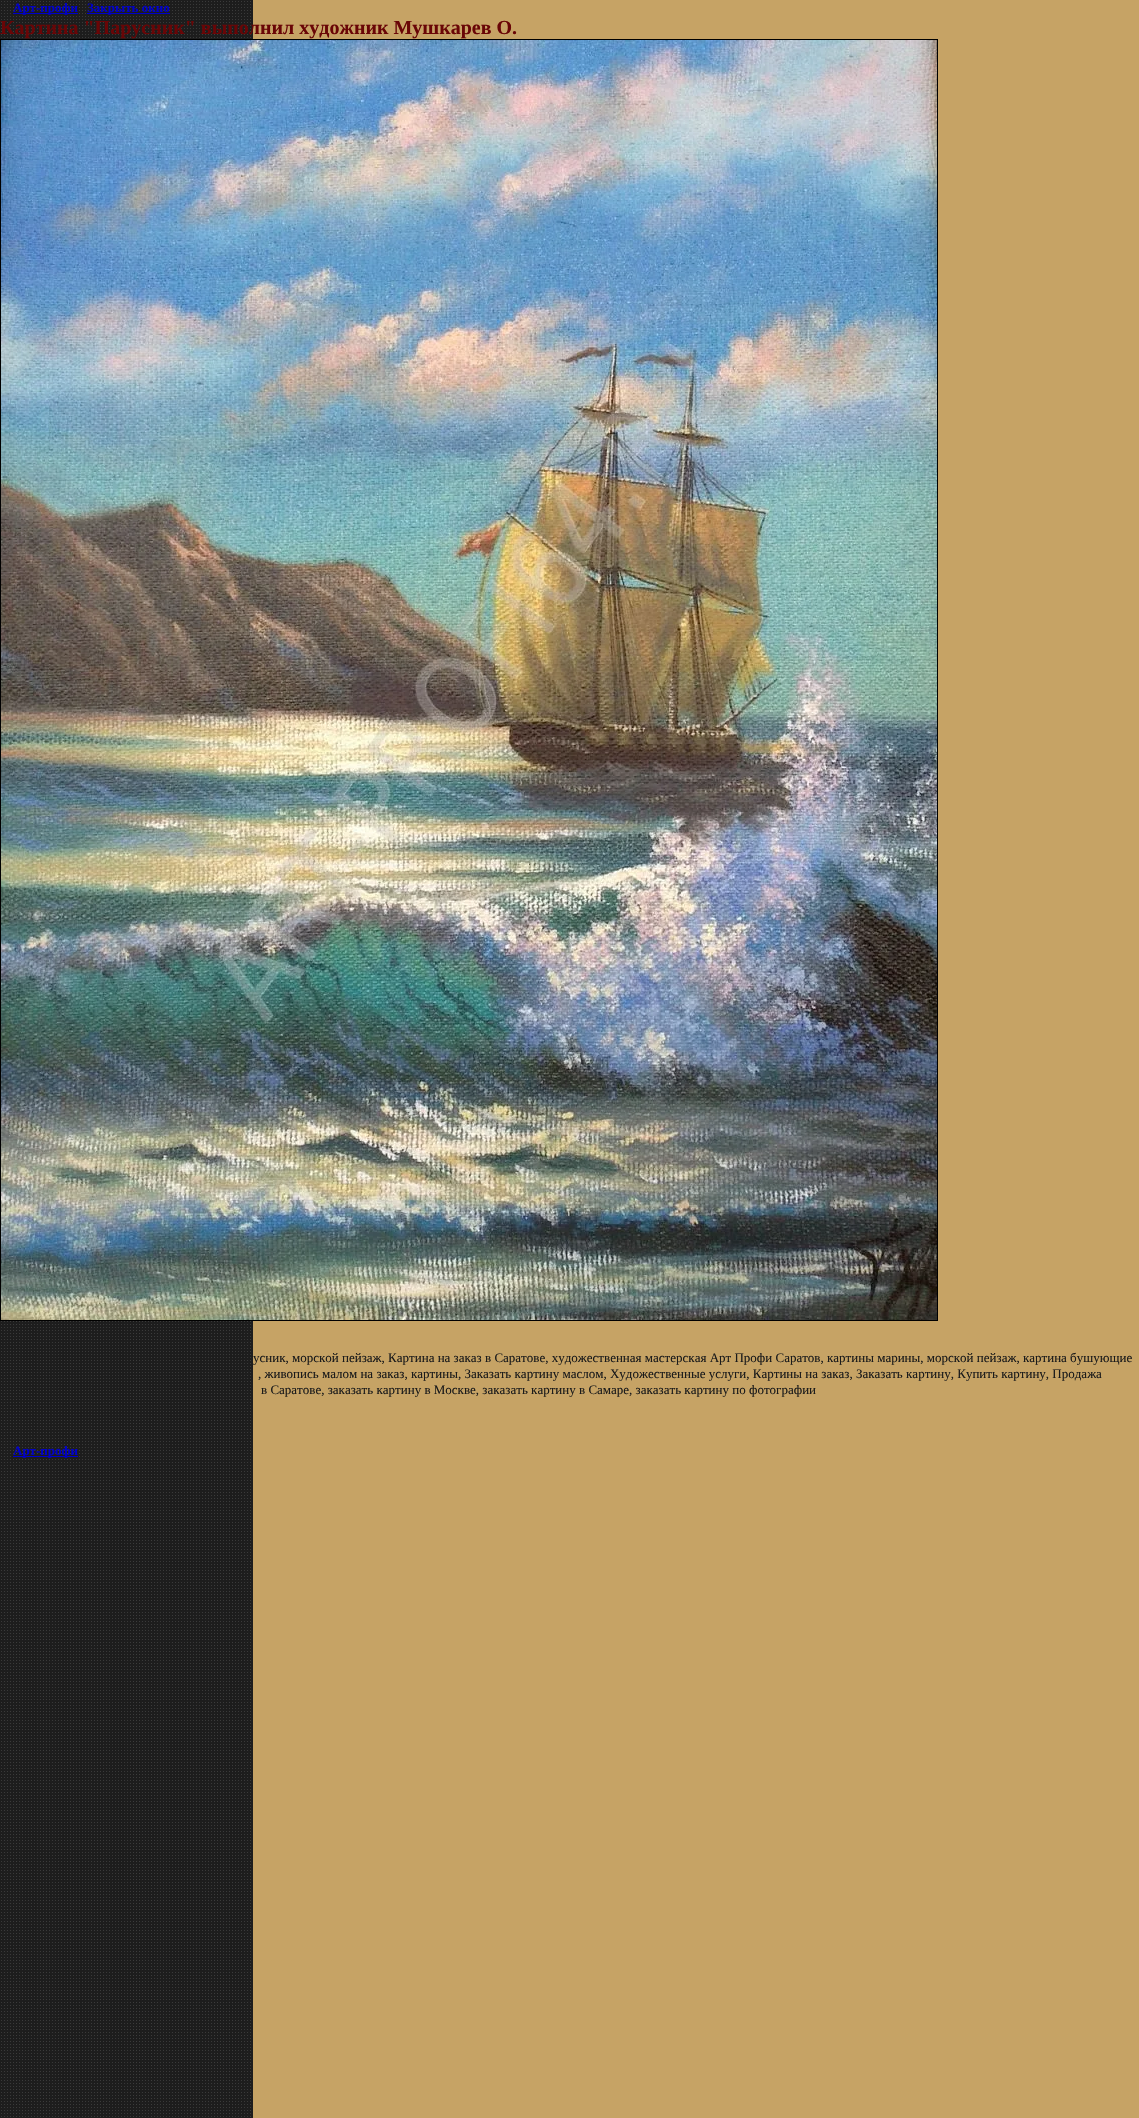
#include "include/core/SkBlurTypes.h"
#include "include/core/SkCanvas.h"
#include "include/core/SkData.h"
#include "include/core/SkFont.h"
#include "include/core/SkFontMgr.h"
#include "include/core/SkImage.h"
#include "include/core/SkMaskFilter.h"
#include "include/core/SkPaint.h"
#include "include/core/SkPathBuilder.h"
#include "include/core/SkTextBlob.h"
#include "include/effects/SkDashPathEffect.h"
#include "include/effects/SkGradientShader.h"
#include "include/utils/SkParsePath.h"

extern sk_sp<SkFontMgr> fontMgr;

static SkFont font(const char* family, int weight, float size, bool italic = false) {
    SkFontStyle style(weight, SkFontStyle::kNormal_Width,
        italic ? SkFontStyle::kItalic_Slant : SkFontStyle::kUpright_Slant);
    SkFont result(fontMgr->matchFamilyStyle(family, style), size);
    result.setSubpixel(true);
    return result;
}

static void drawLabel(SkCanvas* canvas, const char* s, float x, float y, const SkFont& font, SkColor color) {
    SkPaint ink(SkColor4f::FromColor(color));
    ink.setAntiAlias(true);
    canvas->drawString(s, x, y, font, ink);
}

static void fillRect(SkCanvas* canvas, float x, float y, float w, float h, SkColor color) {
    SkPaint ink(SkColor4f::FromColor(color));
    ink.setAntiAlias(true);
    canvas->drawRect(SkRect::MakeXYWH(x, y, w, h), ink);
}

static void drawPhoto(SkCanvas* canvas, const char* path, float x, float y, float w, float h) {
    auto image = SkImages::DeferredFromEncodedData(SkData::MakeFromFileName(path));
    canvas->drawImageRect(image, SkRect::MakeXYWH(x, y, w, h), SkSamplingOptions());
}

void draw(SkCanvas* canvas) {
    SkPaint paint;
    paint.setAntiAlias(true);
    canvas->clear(0xFFC6A365);
    drawPhoto(canvas, "assets/img1.png", 0, 0, 253, 2118);
    fillRect(canvas, 13, 13, 65, 1, 0xFF0000CC);
    SkFont font1 = font("Liberation Serif", 700, 13);
    drawLabel(canvas, "Арт-профи", 13, 12, font1, 0xFF0000CC);
    fillRect(canvas, 87, 13, 83, 1, 0xFF0000CC);
    drawLabel(canvas, "Закрыть окно", 87, 12, font1, 0xFF0000CC);
    SkFont font2 = font("Liberation Serif", 700, 20);
    drawLabel(canvas, "Картина \"Парусник\" выполнил художник Мушкарев О.", 0, 34, font2, 0xFF690506);
    paint.setStroke(true);
    paint.setStrokeWidth(1);
    paint.setColor(0xFF000000);
    canvas->drawRect(SkRect::MakeXYWH(0.5f, 39.5f, 937, 1281), paint);
    drawPhoto(canvas, "assets/img2.png", 1, 40, 936, 1280);
    SkFont font3 = font("Liberation Serif", 400, 13);
    drawLabel(canvas, "усник, морской пейзаж, Картина на заказ в Саратове, художественная мастерская Арт Профи Саратов, картины марины, морской пейзаж, картина бушующие", 253, 1362, font3, 0xFF1A1A1A);
    drawLabel(canvas, ", живопись малом на заказ, картины, Заказать картину маслом, Художественные услуги, Картины на заказ, Заказать картину, Купить картину, Продажа", 258, 1378, font3, 0xFF1A1A1A);
    drawLabel(canvas, "в Саратове, заказать картину в Москве, заказать картину в Самаре, заказать картину по фотографии", 261, 1394, font3, 0xFF1A1A1A);
    fillRect(canvas, 13, 1456, 65, 1, 0xFF0000CC);
    drawLabel(canvas, "Арт-профи", 13, 1455, font1, 0xFF0000CC);
}
